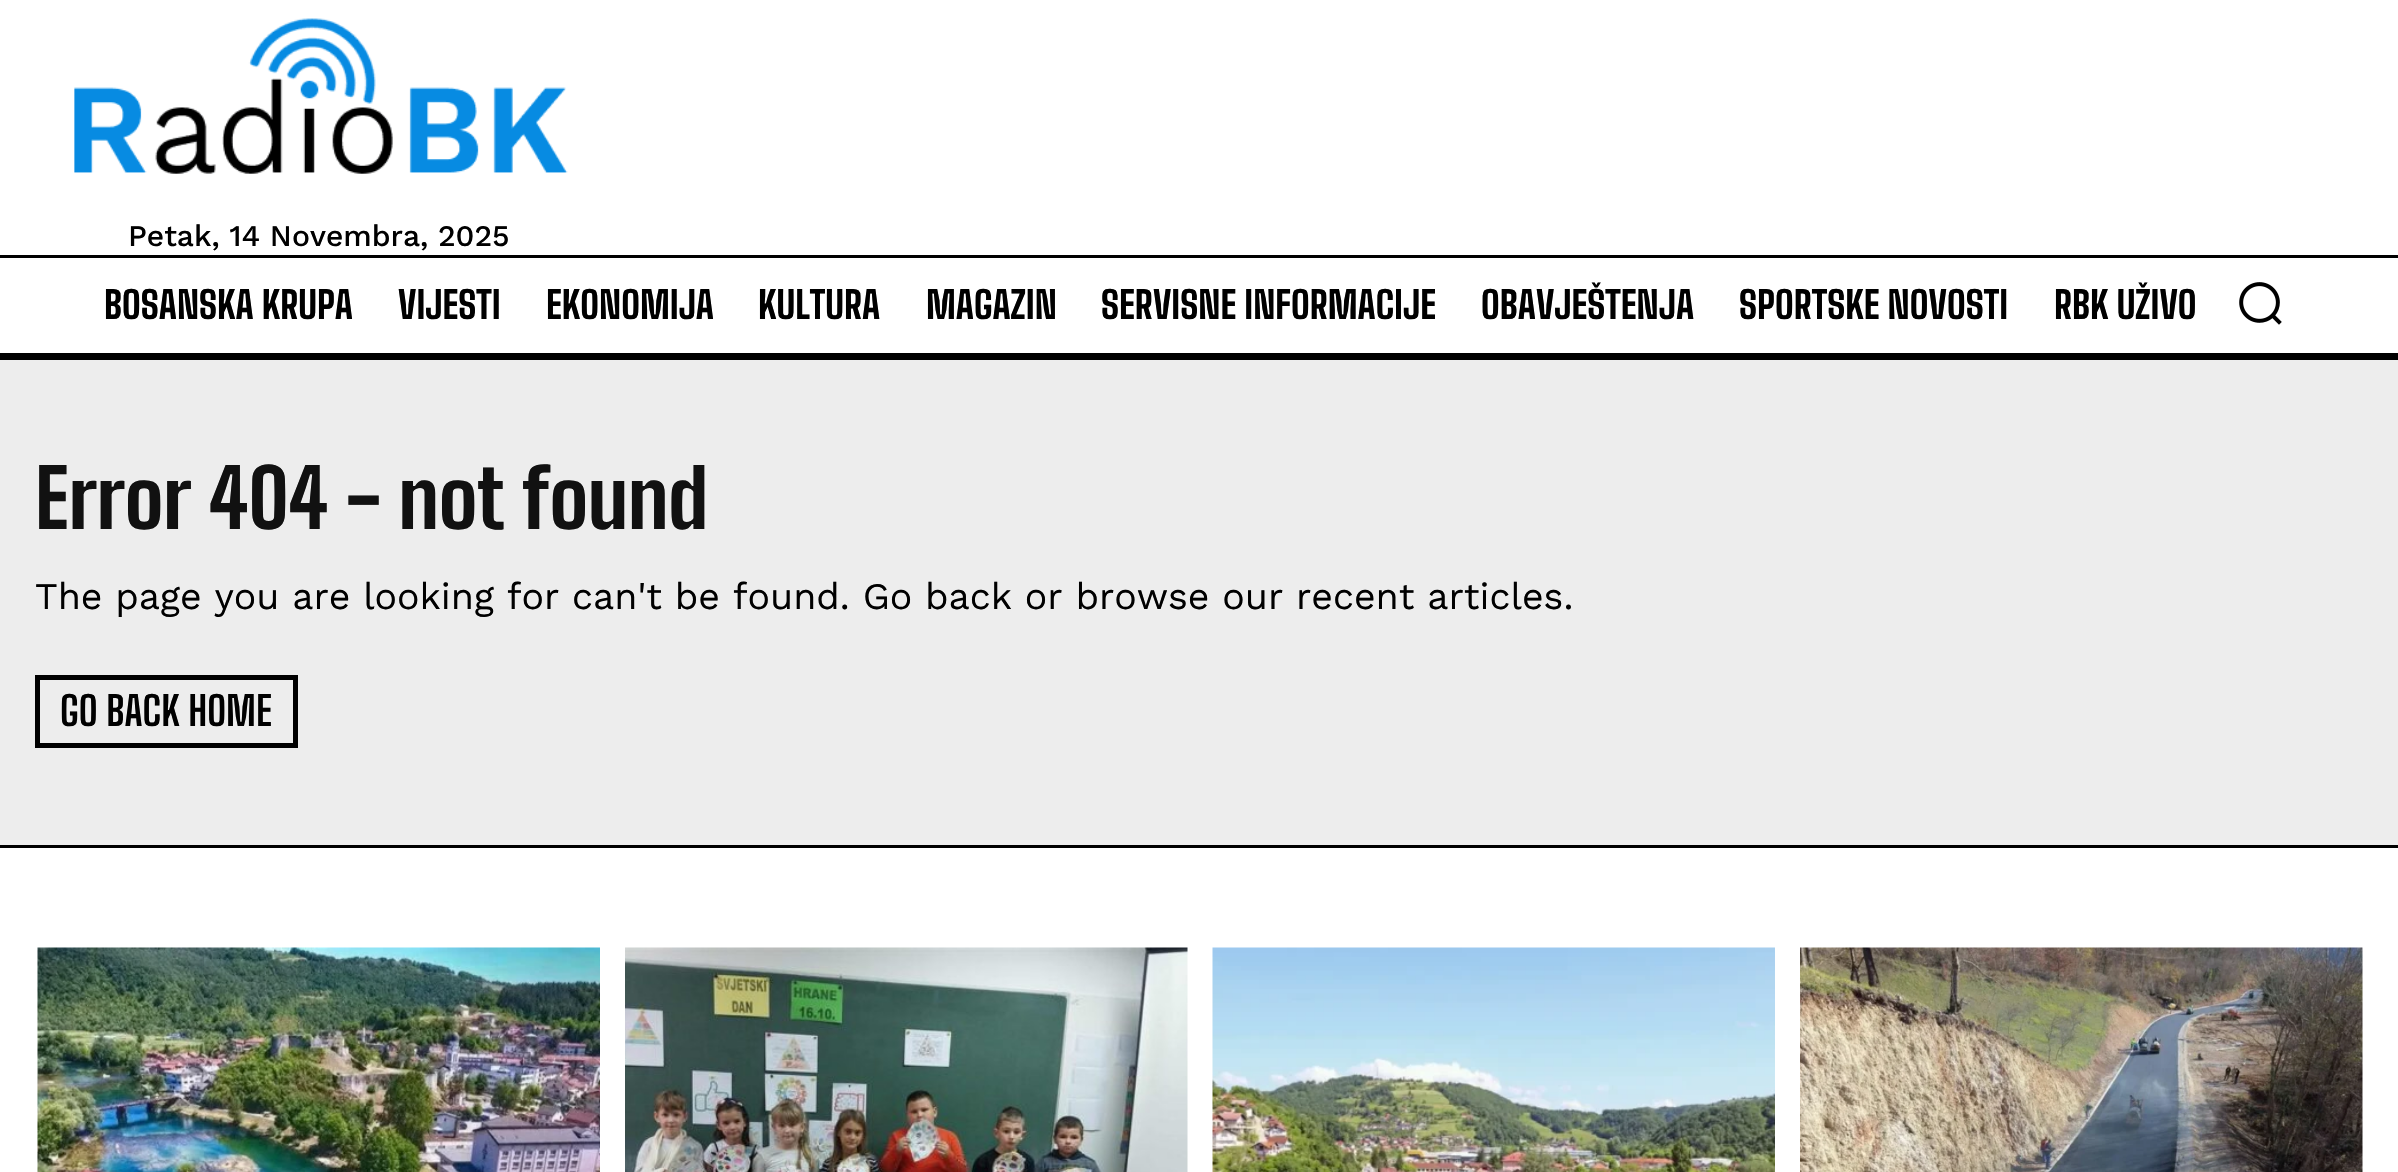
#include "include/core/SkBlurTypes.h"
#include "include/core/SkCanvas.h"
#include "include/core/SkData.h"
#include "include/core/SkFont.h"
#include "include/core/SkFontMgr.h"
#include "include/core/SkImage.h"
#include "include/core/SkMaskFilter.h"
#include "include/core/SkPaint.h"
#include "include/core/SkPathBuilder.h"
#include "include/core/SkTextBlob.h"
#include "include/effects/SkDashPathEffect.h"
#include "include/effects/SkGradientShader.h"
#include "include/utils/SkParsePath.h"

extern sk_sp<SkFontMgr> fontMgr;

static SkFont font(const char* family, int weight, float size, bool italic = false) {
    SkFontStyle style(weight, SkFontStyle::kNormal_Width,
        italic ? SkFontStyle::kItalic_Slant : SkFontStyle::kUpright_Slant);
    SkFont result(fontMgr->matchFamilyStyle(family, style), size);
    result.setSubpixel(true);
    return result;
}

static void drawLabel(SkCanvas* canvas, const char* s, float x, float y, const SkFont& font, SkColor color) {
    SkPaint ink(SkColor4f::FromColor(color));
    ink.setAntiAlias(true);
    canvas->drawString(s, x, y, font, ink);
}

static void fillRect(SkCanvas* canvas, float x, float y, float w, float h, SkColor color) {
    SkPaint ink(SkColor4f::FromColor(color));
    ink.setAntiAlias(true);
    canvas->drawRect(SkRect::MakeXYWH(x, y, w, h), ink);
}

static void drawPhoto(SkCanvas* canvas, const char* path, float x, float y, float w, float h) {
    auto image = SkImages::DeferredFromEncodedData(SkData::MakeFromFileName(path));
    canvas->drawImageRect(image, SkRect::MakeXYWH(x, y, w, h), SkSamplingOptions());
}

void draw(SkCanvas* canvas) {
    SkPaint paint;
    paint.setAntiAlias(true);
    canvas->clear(0xFFFFFFFF);
    drawPhoto(canvas, "assets/img1.png", 74, 18, 494, 156);
    SkFont font1 = font("Work Sans", 500, 30);
    drawLabel(canvas, "Petak, 14 Novembra, 2025", 128, 246, font1, 0xFF000000);
    fillRect(canvas, 0, 255, 2398, 3, 0xFF000000);
    fillRect(canvas, 0, 353, 2398, 7, 0xFF000000);
    SkFont font2 = font("Big Shoulders Text", 800, 37.5f);
    drawLabel(canvas, "BOSANSKA KRUPA", 104, 319, font2, 0xFF000000);
    drawLabel(canvas, "VIJESTI", 398, 319, font2, 0xFF000000);
    drawLabel(canvas, "EKONOMIJA", 546, 319, font2, 0xFF000000);
    drawLabel(canvas, "KULTURA", 758, 319, font2, 0xFF000000);
    drawLabel(canvas, "MAGAZIN", 926, 319, font2, 0xFF000000);
    drawLabel(canvas, "SERVISNE INFORMACIJE", 1101, 319, font2, 0xFF000000);
    drawLabel(canvas, "OBAVJEŠTENJA", 1481, 319, font2, 0xFF000000);
    drawLabel(canvas, "SPORTSKE NOVOSTI", 1739, 319, font2, 0xFF000000);
    drawLabel(canvas, "RBK UŽIVO", 2054, 319, font2, 0xFF000000);
    drawPhoto(canvas, "assets/img2.png", 2239, 282, 43, 43);
    fillRect(canvas, 0, 360, 2398, 485, 0xFFEDEDED);
    fillRect(canvas, 0, 845, 2398, 3, 0xFF000000);
    SkFont font3 = font("Big Shoulders Text", 800, 80);
    drawLabel(canvas, "Error 404 - not found", 35, 529, font3, 0xFF111111);
    SkFont font4 = font("Work Sans", 400, 37.5f);
    drawLabel(canvas, "The page you are looking for can't be found. Go back or browse our recent articles.", 35, 609, font4, 0xFF000000);
    paint.setStroke(true);
    paint.setStrokeWidth(5);
    paint.setColor(0xFF000000);
    canvas->drawRect(SkRect::MakeXYWH(37.5f, 677.5f, 258, 68), paint);
    SkFont font5 = font("Big Shoulders Text", 700, 40);
    drawLabel(canvas, "GO BACK HOME", 60, 726, font5, 0xFF000000);
    drawPhoto(canvas, "assets/img3.png", 37, 947, 563, 225);
    drawPhoto(canvas, "assets/img4.png", 625, 947, 563, 225);
    drawPhoto(canvas, "assets/img5.png", 1212, 947, 563, 225);
    drawPhoto(canvas, "assets/img6.png", 1800, 947, 563, 225);
}
